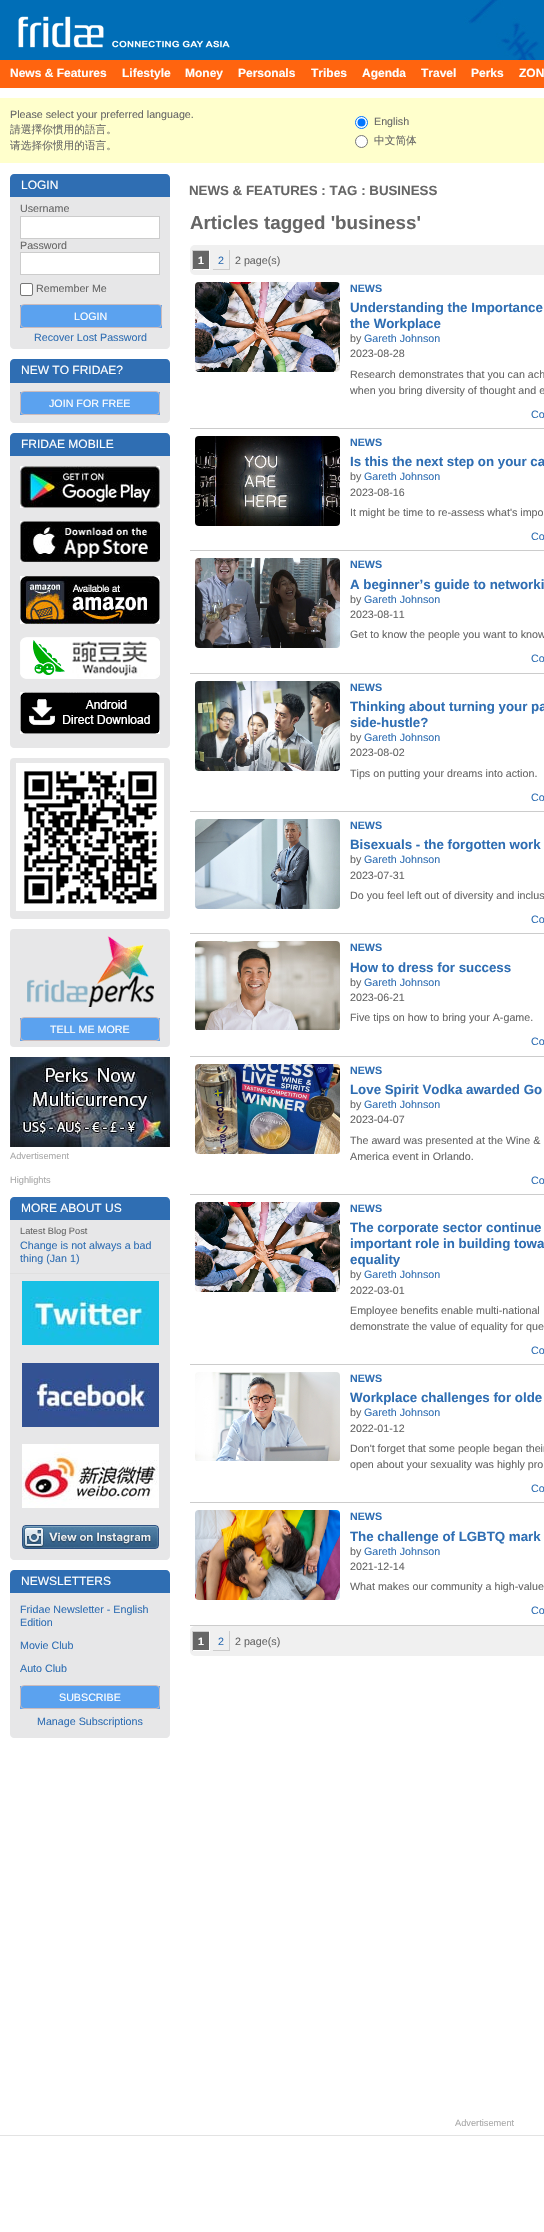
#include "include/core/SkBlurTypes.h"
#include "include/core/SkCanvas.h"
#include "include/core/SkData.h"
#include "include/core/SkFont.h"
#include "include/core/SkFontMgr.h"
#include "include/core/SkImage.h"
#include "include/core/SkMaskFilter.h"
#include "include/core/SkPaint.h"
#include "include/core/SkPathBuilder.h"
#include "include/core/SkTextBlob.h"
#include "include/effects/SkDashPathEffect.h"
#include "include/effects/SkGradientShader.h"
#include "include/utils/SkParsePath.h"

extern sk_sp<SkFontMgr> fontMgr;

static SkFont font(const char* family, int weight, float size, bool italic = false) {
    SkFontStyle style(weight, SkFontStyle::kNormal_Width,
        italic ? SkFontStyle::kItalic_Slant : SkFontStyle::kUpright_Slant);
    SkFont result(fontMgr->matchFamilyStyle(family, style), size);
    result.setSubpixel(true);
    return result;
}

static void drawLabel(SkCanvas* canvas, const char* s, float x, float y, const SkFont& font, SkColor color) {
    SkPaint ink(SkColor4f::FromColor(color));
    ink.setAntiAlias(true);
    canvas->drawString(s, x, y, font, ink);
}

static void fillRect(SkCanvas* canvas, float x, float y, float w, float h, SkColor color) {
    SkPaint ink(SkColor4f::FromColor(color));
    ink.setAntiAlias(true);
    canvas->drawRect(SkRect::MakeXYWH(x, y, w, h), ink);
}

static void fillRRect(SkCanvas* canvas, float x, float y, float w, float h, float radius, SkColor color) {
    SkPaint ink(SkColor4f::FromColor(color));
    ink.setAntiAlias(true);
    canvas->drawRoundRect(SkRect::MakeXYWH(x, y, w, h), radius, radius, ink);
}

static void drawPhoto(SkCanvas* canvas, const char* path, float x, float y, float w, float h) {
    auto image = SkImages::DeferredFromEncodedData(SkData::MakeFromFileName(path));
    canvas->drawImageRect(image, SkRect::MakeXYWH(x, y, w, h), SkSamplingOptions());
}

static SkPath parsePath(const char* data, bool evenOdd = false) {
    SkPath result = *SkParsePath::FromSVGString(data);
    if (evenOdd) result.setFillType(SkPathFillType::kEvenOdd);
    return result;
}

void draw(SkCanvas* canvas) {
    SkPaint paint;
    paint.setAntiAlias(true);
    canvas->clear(0xFFFFFFFF);
    drawPhoto(canvas, "assets/img1.png", 0, 0, 544, 60);
    drawPhoto(canvas, "assets/img2.png", 18, 16, 212, 32);
    fillRect(canvas, 0, 60, 544, 28, 0xFFFF640F);
    SkFont font1 = font("Liberation Sans", 700, 12);
    drawLabel(canvas, "News & Features", 10, 77, font1, 0xFFFFFFFF);
    drawLabel(canvas, "Lifestyle", 122, 77, font1, 0xFFFFFFFF);
    drawLabel(canvas, "Money", 185, 77, font1, 0xFFFFFFFF);
    drawLabel(canvas, "Personals", 238, 77, font1, 0xFFFFFFFF);
    drawLabel(canvas, "Tribes", 311, 77, font1, 0xFFFFFFFF);
    drawLabel(canvas, "Agenda", 362, 77, font1, 0xFFFFFFFF);
    drawLabel(canvas, "Travel", 421, 77, font1, 0xFFFFFFFF);
    drawLabel(canvas, "Perks", 471, 77, font1, 0xFFFFFFFF);
    drawLabel(canvas, "ZON", 519, 77, font1, 0xFFFFFFFF);
    fillRect(canvas, 0, 98, 544, 65, 0xFFFFFFCC);
    SkFont font2 = font("Liberation Sans", 400, 10.7f);
    drawLabel(canvas, "Please select your preferred language.", 10, 118, font2, 0xFF666666);
    SkFont font3 = font("WenQuanYi Zen Hei", 500, 10.7f);
    drawLabel(canvas, "請選擇你慣用的語言。", 10, 133, font3, 0xFF666666);
    drawLabel(canvas, "请选择你惯用的语言。", 10, 149, font3, 0xFF666666);
    paint.setColor(0xFFFFFFFF);
    canvas->drawCircle(361.5f, 122.5f, 6, paint);
    paint.setStroke(true);
    paint.setStrokeWidth(1);
    paint.setColor(0xFF0075FF);
    canvas->drawCircle(361.5f, 122.5f, 6, paint);
    paint.setStroke(false);
    canvas->drawCircle(361.5f, 122.5f, 4, paint);
    drawLabel(canvas, "English", 374, 125, font2, 0xFF666666);
    paint.setColor(0xFFFFFFFF);
    canvas->drawCircle(361.5f, 141.5f, 6, paint);
    paint.setStroke(true);
    paint.setColor(0xFF767676);
    canvas->drawCircle(361.5f, 141.5f, 6, paint);
    drawLabel(canvas, "中文简体", 374, 144, font3, 0xFF666666);
    paint.setStroke(false);
    paint.setColor(0xFF2F6EB3);
    canvas->drawPath(parsePath("M14 174H166C168 174 170 176 170 178V197H10V178C10 176 12 174 14 174Z"), paint);
    SkFont font4 = font("Liberation Sans", 400, 12);
    drawLabel(canvas, "LOGIN", 21, 189, font4, 0xFFFFFFFF);
    paint.setColor(0xFFE7E7E8);
    canvas->drawPath(parsePath("M10 197H170V345C170 347 168 349 166 349H14C12 349 10 347 10 345Z"), paint);
    drawLabel(canvas, "Username", 20, 212, font2, 0xFF666666);
    paint.setColor(0xFFFFFFFF);
    canvas->drawRect(SkRect::MakeXYWH(20.5f, 216.5f, 139, 22), paint);
    paint.setStroke(true);
    paint.setColor(0xFFCCCCCC);
    canvas->drawRect(SkRect::MakeXYWH(20.5f, 216.5f, 139, 22), paint);
    drawLabel(canvas, "Password", 20, 249, font2, 0xFF666666);
    paint.setStroke(false);
    paint.setColor(0xFFFFFFFF);
    canvas->drawRect(SkRect::MakeXYWH(20.5f, 252.5f, 139, 22), paint);
    paint.setStroke(true);
    paint.setColor(0xFFCCCCCC);
    canvas->drawRect(SkRect::MakeXYWH(20.5f, 252.5f, 139, 22), paint);
    paint.setStroke(false);
    paint.setColor(0xFFFFFFFF);
    canvas->drawRoundRect(SkRect::MakeXYWH(20.5f, 283.5f, 12, 12), 1.5f, 1.5f, paint);
    paint.setStroke(true);
    paint.setColor(0xFF767676);
    canvas->drawRoundRect(SkRect::MakeXYWH(20.5f, 283.5f, 12, 12), 1.5f, 1.5f, paint);
    drawLabel(canvas, "Remember Me", 36, 292, font2, 0xFF666666);
    fillRect(canvas, 20, 305, 142, 23, 0xFF5BA2EF);
    paint.setColor(0xFFCCBBBB);
    canvas->drawRoundRect(SkRect::MakeXYWH(20.5f, 304.5f, 141, 23), 3.5f, 3.5f, paint);
    drawLabel(canvas, "LOGIN", 74, 320, font2, 0xFFFFFFFF);
    drawLabel(canvas, "Recover Lost Password", 34, 341, font2, 0xFF2F6EB3);
    paint.setStroke(false);
    paint.setColor(0xFF2F6EB3);
    canvas->drawPath(parsePath("M14 359H166C168 359 170 361 170 363V383H10V363C10 361 12 359 14 359Z"), paint);
    drawLabel(canvas, "NEW TO FRIDAE?", 21, 374, font4, 0xFFFFFFFF);
    paint.setColor(0xFFE7E7E8);
    canvas->drawPath(parsePath("M10 383H170V419C170 421 168 423 166 423H14C12 423 10 421 10 419Z"), paint);
    fillRect(canvas, 20, 392, 140, 23, 0xFF5BA2EF);
    paint.setStroke(true);
    paint.setColor(0xFFCCBBBB);
    canvas->drawRoundRect(SkRect::MakeXYWH(20.5f, 391.5f, 139, 23), 3.5f, 3.5f, paint);
    drawLabel(canvas, "JOIN FOR FREE", 49, 407, font2, 0xFFFFFFFF);
    paint.setStroke(false);
    paint.setColor(0xFF2F6EB3);
    canvas->drawPath(parsePath("M14 433H166C168 433 170 435 170 437V456H10V437C10 435 12 433 14 433Z"), paint);
    drawLabel(canvas, "FRIDAE MOBILE", 21, 448, font4, 0xFFFFFFFF);
    paint.setColor(0xFFE7E7E8);
    canvas->drawPath(parsePath("M10 456H170V744C170 746 168 748 166 748H14C12 748 10 746 10 744Z"), paint);
    drawPhoto(canvas, "assets/img3.png", 20, 466, 140, 42);
    drawPhoto(canvas, "assets/img4.png", 20, 521, 140, 41);
    drawPhoto(canvas, "assets/img5.png", 20, 576, 140, 48);
    drawPhoto(canvas, "assets/img6.png", 20, 637, 140, 42);
    drawPhoto(canvas, "assets/img7.png", 20, 692, 140, 42);
    fillRRect(canvas, 10, 758, 160, 161, 4, 0xFFE7E7E8);
    drawPhoto(canvas, "assets/img8.png", 16, 763, 148, 148);
    fillRRect(canvas, 10, 929, 160, 118, 4, 0xFFE7E7E8);
    drawPhoto(canvas, "assets/img9.png", 27, 936, 127, 71);
    fillRect(canvas, 20, 1018, 140, 23, 0xFF5BA2EF);
    paint.setStroke(true);
    paint.setColor(0xFFCCBBBB);
    canvas->drawRoundRect(SkRect::MakeXYWH(20.5f, 1017.5f, 139, 23), 3.5f, 3.5f, paint);
    drawLabel(canvas, "TELL ME MORE", 50, 1033, font2, 0xFFFFFFFF);
    drawPhoto(canvas, "assets/img10.png", 10, 1057, 160, 90);
    SkFont font5 = font("Liberation Sans", 400, 9.25f);
    drawLabel(canvas, "Advertisement", 10, 1159, font5, 0xFFAAAAAA);
    drawLabel(canvas, "Highlights", 10, 1183, font5, 0xFFAAAAAA);
    paint.setStroke(false);
    paint.setColor(0xFF2F6EB3);
    canvas->drawPath(parsePath("M14 1197H166C168 1197 170 1199 170 1201V1220H10V1201C10 1199 12 1197 14 1197Z"), paint);
    drawLabel(canvas, "MORE ABOUT US", 21, 1212, font4, 0xFFFFFFFF);
    paint.setColor(0xFFE7E7E8);
    canvas->drawPath(parsePath("M10 1220H170V1556C170 1558 168 1560 166 1560H14C12 1560 10 1558 10 1556Z"), paint);
    drawLabel(canvas, "Latest Blog Post", 20, 1234, font5, 0xFF666666);
    drawLabel(canvas, "Change is not always a bad", 20, 1249, font2, 0xFF2F6EB3);
    drawLabel(canvas, "thing (Jan 1)", 20, 1262, font2, 0xFF2F6EB3);
    fillRect(canvas, 10, 1273, 160, 1, 0xFFE0E0E0);
    drawPhoto(canvas, "assets/img11.png", 22, 1281, 137, 64);
    drawPhoto(canvas, "assets/img12.png", 22, 1363, 137, 64);
    drawPhoto(canvas, "assets/img13.png", 22, 1444, 137, 64);
    drawPhoto(canvas, "assets/img14.png", 22, 1525, 137, 24);
    paint.setColor(0xFF2F6EB3);
    canvas->drawPath(parsePath("M14 1570H166C168 1570 170 1572 170 1574V1593H10V1574C10 1572 12 1570 14 1570Z"), paint);
    drawLabel(canvas, "NEWSLETTERS", 21, 1585, font4, 0xFFFFFFFF);
    paint.setColor(0xFFE7E7E8);
    canvas->drawPath(parsePath("M10 1593H170V1734C170 1736 168 1738 166 1738H14C12 1738 10 1736 10 1734Z"), paint);
    drawLabel(canvas, "Fridae Newsletter - English", 20, 1613, font2, 0xFF2F6EB3);
    drawLabel(canvas, "Edition", 20, 1626, font2, 0xFF2F6EB3);
    drawLabel(canvas, "Movie Club", 20, 1649, font2, 0xFF2F6EB3);
    drawLabel(canvas, "Auto Club", 20, 1672, font2, 0xFF2F6EB3);
    fillRect(canvas, 20, 1686, 140, 23, 0xFF5BA2EF);
    paint.setStroke(true);
    paint.setColor(0xFFCCBBBB);
    canvas->drawRoundRect(SkRect::MakeXYWH(20.5f, 1685.5f, 139, 23), 3.5f, 3.5f, paint);
    drawLabel(canvas, "SUBSCRIBE", 59, 1701, font2, 0xFFFFFFFF);
    drawLabel(canvas, "Manage Subscriptions", 37, 1725, font2, 0xFF2F6EB3);
    SkFont font6 = font("Liberation Sans", 700, 13.3f);
    drawLabel(canvas, "NEWS & FEATURES : TAG : BUSINESS", 189, 195, font6, 0xFF666666);
    SkFont font7 = font("Liberation Sans", 700, 18.75f);
    drawLabel(canvas, "Articles tagged 'business'", 190, 229, font7, 0xFF666666);
    fillRRect(canvas, 190, 245, 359, 30, 5, 0xFFF0F0F0);
    fillRect(canvas, 193, 251, 16, 18, 0xFF666666);
    SkFont font8 = font("Liberation Sans", 700, 10.7f);
    drawLabel(canvas, "1", 198, 264, font8, 0xFFFFFFFF);
    fillRect(canvas, 192, 250, 18, 1, 0xFFCCCCCC);
    fillRect(canvas, 209, 250, 1, 20, 0xFFFFFFFF);
    fillRect(canvas, 192, 269, 18, 1, 0xFFFFFFFF);
    fillRect(canvas, 192, 250, 1, 20, 0xFFCCCCCC);
    drawLabel(canvas, "2", 218, 264, font2, 0xFF2F6EB3);
    fillRect(canvas, 229, 250, 1, 20, 0xFFCCCCCC);
    fillRect(canvas, 212, 269, 18, 1, 0xFFCCCCCC);
    fillRect(canvas, 212, 269, 1, 1, 0xFFEEEEEE);
    drawLabel(canvas, "2 page(s)", 235, 264, font2, 0xFF666666);
    drawPhoto(canvas, "assets/img15.png", 195, 282, 145, 90);
    fillRect(canvas, 190, 428, 354, 1, 0xFFCCCCCC);
    drawLabel(canvas, "NEWS", 350, 292, font8, 0xFF2F6EB3);
    drawLabel(canvas, "Understanding the Importance", 350, 312, font6, 0xFF2F6EB3);
    drawLabel(canvas, "the Workplace", 350, 328, font6, 0xFF2F6EB3);
    drawLabel(canvas, "by", 350, 342, font2, 0xFF666666);
    drawLabel(canvas, "Gareth Johnson", 364, 342, font2, 0xFF2F6EB3);
    drawLabel(canvas, "2023-08-28", 350, 357, font2, 0xFF666666);
    drawLabel(canvas, "Research demonstrates that you can ach", 350, 378, font2, 0xFF666666);
    drawLabel(canvas, "when you bring diversity of thought and e", 350, 394, font2, 0xFF666666);
    drawLabel(canvas, "Co", 531, 418, font2, 0xFF2F6EB3);
    drawPhoto(canvas, "assets/img16.png", 195, 436, 145, 90);
    fillRect(canvas, 190, 550, 354, 1, 0xFFCCCCCC);
    drawLabel(canvas, "NEWS", 350, 446, font8, 0xFF2F6EB3);
    drawLabel(canvas, "Is this the next step on your ca", 350, 466, font6, 0xFF2F6EB3);
    drawLabel(canvas, "by", 350, 480, font2, 0xFF666666);
    drawLabel(canvas, "Gareth Johnson", 364, 480, font2, 0xFF2F6EB3);
    drawLabel(canvas, "2023-08-16", 350, 496, font2, 0xFF666666);
    drawLabel(canvas, "It might be time to re-assess what's impo", 350, 516, font2, 0xFF666666);
    drawLabel(canvas, "Co", 531, 540, font2, 0xFF2F6EB3);
    drawPhoto(canvas, "assets/img17.png", 195, 558, 145, 90);
    fillRect(canvas, 190, 673, 354, 1, 0xFFCCCCCC);
    drawLabel(canvas, "NEWS", 350, 568, font8, 0xFF2F6EB3);
    drawLabel(canvas, "A beginner’s guide to networki", 350, 589, font6, 0xFF2F6EB3);
    drawLabel(canvas, "by", 350, 603, font2, 0xFF666666);
    drawLabel(canvas, "Gareth Johnson", 364, 603, font2, 0xFF2F6EB3);
    drawLabel(canvas, "2023-08-11", 350, 618, font2, 0xFF666666);
    drawLabel(canvas, "Get to know the people you want to know", 350, 638, font2, 0xFF666666);
    drawLabel(canvas, "Co", 531, 662, font2, 0xFF2F6EB3);
    drawPhoto(canvas, "assets/img18.png", 195, 681, 145, 90);
    fillRect(canvas, 190, 811, 354, 1, 0xFFCCCCCC);
    drawLabel(canvas, "NEWS", 350, 691, font8, 0xFF2F6EB3);
    drawLabel(canvas, "Thinking about turning your pa", 350, 711, font6, 0xFF2F6EB3);
    drawLabel(canvas, "side-hustle?", 350, 727, font6, 0xFF2F6EB3);
    drawLabel(canvas, "by", 350, 741, font2, 0xFF666666);
    drawLabel(canvas, "Gareth Johnson", 364, 741, font2, 0xFF2F6EB3);
    drawLabel(canvas, "2023-08-02", 350, 756, font2, 0xFF666666);
    drawLabel(canvas, "Tips on putting your dreams into action.", 350, 777, font2, 0xFF666666);
    drawLabel(canvas, "Co", 531, 801, font2, 0xFF2F6EB3);
    drawPhoto(canvas, "assets/img19.png", 195, 819, 145, 90);
    fillRect(canvas, 190, 933, 354, 1, 0xFFCCCCCC);
    drawLabel(canvas, "NEWS", 350, 829, font8, 0xFF2F6EB3);
    drawLabel(canvas, "Bisexuals - the forgotten work", 350, 849, font6, 0xFF2F6EB3);
    drawLabel(canvas, "by", 350, 863, font2, 0xFF666666);
    drawLabel(canvas, "Gareth Johnson", 364, 863, font2, 0xFF2F6EB3);
    drawLabel(canvas, "2023-07-31", 350, 879, font2, 0xFF666666);
    drawLabel(canvas, "Do you feel left out of diversity and inclus", 350, 899, font2, 0xFF666666);
    drawLabel(canvas, "Co", 531, 923, font2, 0xFF2F6EB3);
    drawPhoto(canvas, "assets/img20.png", 195, 941, 145, 89);
    fillRect(canvas, 190, 1056, 354, 1, 0xFFCCCCCC);
    drawLabel(canvas, "NEWS", 350, 951, font8, 0xFF2F6EB3);
    drawLabel(canvas, "How to dress for success", 350, 972, font6, 0xFF2F6EB3);
    drawLabel(canvas, "by", 350, 986, font2, 0xFF666666);
    drawLabel(canvas, "Gareth Johnson", 364, 986, font2, 0xFF2F6EB3);
    drawLabel(canvas, "2023-06-21", 350, 1001, font2, 0xFF666666);
    drawLabel(canvas, "Five tips on how to bring your A-game.", 350, 1021, font2, 0xFF666666);
    drawLabel(canvas, "Co", 531, 1045, font2, 0xFF2F6EB3);
    drawPhoto(canvas, "assets/img21.png", 195, 1064, 145, 90);
    fillRect(canvas, 190, 1194, 354, 1, 0xFFCCCCCC);
    drawLabel(canvas, "NEWS", 350, 1074, font8, 0xFF2F6EB3);
    drawLabel(canvas, "Love Spirit Vodka awarded Go", 350, 1094, font6, 0xFF2F6EB3);
    drawLabel(canvas, "by", 350, 1108, font2, 0xFF666666);
    drawLabel(canvas, "Gareth Johnson", 364, 1108, font2, 0xFF2F6EB3);
    drawLabel(canvas, "2023-04-07", 350, 1123, font2, 0xFF666666);
    drawLabel(canvas, "The award was presented at the Wine &", 350, 1144, font2, 0xFF666666);
    drawLabel(canvas, "America event in Orlando.", 350, 1160, font2, 0xFF666666);
    drawLabel(canvas, "Co", 531, 1184, font2, 0xFF2F6EB3);
    drawPhoto(canvas, "assets/img22.png", 195, 1202, 145, 90);
    fillRect(canvas, 190, 1364, 354, 1, 0xFFCCCCCC);
    drawLabel(canvas, "NEWS", 350, 1212, font8, 0xFF2F6EB3);
    drawLabel(canvas, "The corporate sector continue", 350, 1232, font6, 0xFF2F6EB3);
    drawLabel(canvas, "important role in building towa", 350, 1248, font6, 0xFF2F6EB3);
    drawLabel(canvas, "equality", 350, 1264, font6, 0xFF2F6EB3);
    drawLabel(canvas, "by", 350, 1278, font2, 0xFF666666);
    drawLabel(canvas, "Gareth Johnson", 364, 1278, font2, 0xFF2F6EB3);
    drawLabel(canvas, "2022-03-01", 350, 1294, font2, 0xFF666666);
    drawLabel(canvas, "Employee benefits enable multi-national", 350, 1314, font2, 0xFF666666);
    drawLabel(canvas, "demonstrate the value of equality for que", 350, 1330, font2, 0xFF666666);
    drawLabel(canvas, "Co", 531, 1354, font2, 0xFF2F6EB3);
    drawPhoto(canvas, "assets/img23.png", 195, 1372, 145, 89);
    fillRect(canvas, 190, 1502, 354, 1, 0xFFCCCCCC);
    drawLabel(canvas, "NEWS", 350, 1382, font8, 0xFF2F6EB3);
    drawLabel(canvas, "Workplace challenges for olde", 350, 1402, font6, 0xFF2F6EB3);
    drawLabel(canvas, "by", 350, 1416, font2, 0xFF666666);
    drawLabel(canvas, "Gareth Johnson", 364, 1416, font2, 0xFF2F6EB3);
    drawLabel(canvas, "2022-01-12", 350, 1432, font2, 0xFF666666);
    drawLabel(canvas, "Don't forget that some people began their", 350, 1452, font2, 0xFF666666);
    drawLabel(canvas, "open about your sexuality was highly pro", 350, 1468, font2, 0xFF666666);
    drawLabel(canvas, "Co", 531, 1492, font2, 0xFF2F6EB3);
    drawPhoto(canvas, "assets/img24.png", 195, 1510, 145, 90);
    fillRect(canvas, 190, 1625, 354, 1, 0xFFCCCCCC);
    drawLabel(canvas, "NEWS", 350, 1520, font8, 0xFF2F6EB3);
    drawLabel(canvas, "The challenge of LGBTQ mark", 350, 1541, font6, 0xFF2F6EB3);
    drawLabel(canvas, "by", 350, 1555, font2, 0xFF666666);
    drawLabel(canvas, "Gareth Johnson", 364, 1555, font2, 0xFF2F6EB3);
    drawLabel(canvas, "2021-12-14", 350, 1570, font2, 0xFF666666);
    drawLabel(canvas, "What makes our community a high-value", 350, 1590, font2, 0xFF666666);
    drawLabel(canvas, "Co", 531, 1614, font2, 0xFF2F6EB3);
    fillRRect(canvas, 190, 1626, 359, 30, 5, 0xFFF0F0F0);
    fillRect(canvas, 193, 1632, 16, 18, 0xFF666666);
    drawLabel(canvas, "1", 198, 1645, font8, 0xFFFFFFFF);
    fillRect(canvas, 192, 1631, 18, 1, 0xFFCCCCCC);
    fillRect(canvas, 209, 1631, 1, 20, 0xFFFFFFFF);
    fillRect(canvas, 192, 1650, 18, 1, 0xFFFFFFFF);
    fillRect(canvas, 192, 1631, 1, 20, 0xFFCCCCCC);
    drawLabel(canvas, "2", 218, 1645, font2, 0xFF2F6EB3);
    fillRect(canvas, 229, 1631, 1, 20, 0xFFCCCCCC);
    fillRect(canvas, 212, 1650, 18, 1, 0xFFCCCCCC);
    fillRect(canvas, 212, 1650, 1, 1, 0xFFEEEEEE);
    drawLabel(canvas, "2 page(s)", 235, 1645, font2, 0xFF666666);
    fillRect(canvas, 0, 2135, 544, 1, 0xFFE3E3E3);
    drawLabel(canvas, "Advertisement", 455, 2126, font5, 0xFFAAAAAA);
}
